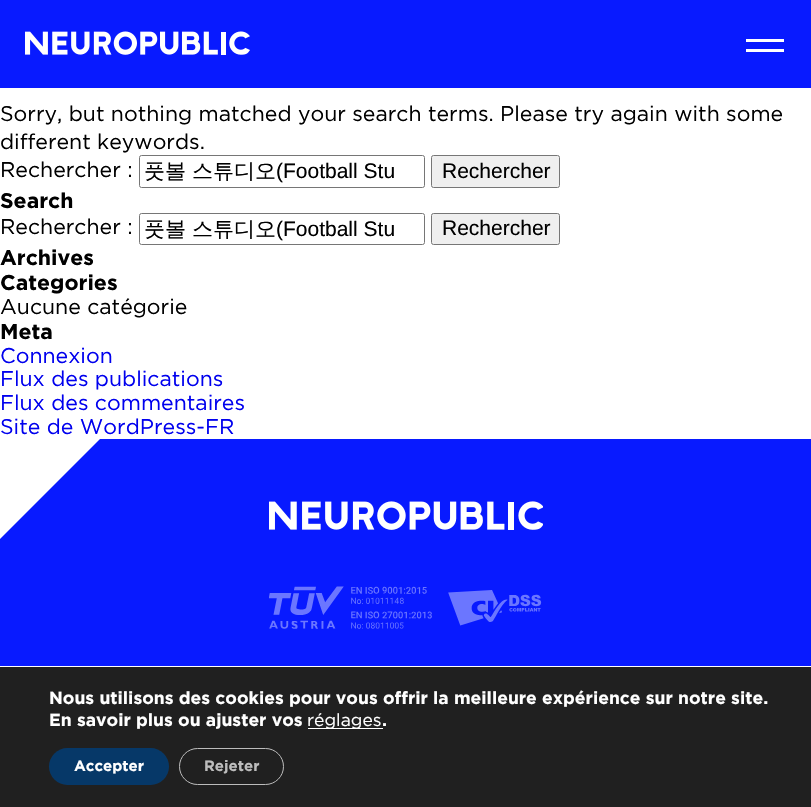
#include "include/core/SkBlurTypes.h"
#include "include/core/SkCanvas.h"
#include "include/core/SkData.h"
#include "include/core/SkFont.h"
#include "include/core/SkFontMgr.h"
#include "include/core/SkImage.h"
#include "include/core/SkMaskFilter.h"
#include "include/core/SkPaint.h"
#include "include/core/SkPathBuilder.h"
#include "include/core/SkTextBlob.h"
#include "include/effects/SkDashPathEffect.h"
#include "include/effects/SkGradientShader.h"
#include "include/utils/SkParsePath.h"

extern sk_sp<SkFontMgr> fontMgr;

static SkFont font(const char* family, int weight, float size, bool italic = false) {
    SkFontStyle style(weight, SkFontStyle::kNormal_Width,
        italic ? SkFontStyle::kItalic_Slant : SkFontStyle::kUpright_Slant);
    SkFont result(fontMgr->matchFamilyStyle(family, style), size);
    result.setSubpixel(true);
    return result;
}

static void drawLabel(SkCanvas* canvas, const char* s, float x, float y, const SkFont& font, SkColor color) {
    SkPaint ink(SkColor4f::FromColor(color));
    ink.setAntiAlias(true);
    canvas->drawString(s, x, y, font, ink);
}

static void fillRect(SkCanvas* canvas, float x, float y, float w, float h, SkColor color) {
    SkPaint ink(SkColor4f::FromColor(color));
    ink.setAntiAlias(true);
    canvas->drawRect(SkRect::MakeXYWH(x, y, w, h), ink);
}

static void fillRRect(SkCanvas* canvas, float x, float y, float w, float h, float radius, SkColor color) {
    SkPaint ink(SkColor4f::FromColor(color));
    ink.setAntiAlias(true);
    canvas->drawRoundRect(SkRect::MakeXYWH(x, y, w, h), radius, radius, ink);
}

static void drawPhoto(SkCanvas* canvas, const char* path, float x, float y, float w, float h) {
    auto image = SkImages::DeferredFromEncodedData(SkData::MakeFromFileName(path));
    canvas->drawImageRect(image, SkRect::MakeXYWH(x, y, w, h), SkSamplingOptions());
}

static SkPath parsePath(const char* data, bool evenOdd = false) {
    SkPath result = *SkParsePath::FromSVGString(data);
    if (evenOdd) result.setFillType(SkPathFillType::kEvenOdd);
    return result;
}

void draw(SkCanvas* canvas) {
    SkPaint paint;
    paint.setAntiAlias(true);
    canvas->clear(0xFFFFFFFF);
    fillRect(canvas, 0, 0, 811, 88, 0xFF081AFF);
    drawPhoto(canvas, "assets/img1.png", 25, 31, 225, 24);
    fillRect(canvas, 746, 39, 38, 3, 0xFFFFFFFF);
    fillRect(canvas, 746, 49, 38, 3, 0xFFFFFFFF);
    SkFont font1 = font("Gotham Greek", 400, 21.25f);
    drawLabel(canvas, "Sorry, but nothing matched your search terms. Please try again with some", 0, 121, font1, 0xFF000000);
    drawLabel(canvas, "different keywords.", 0, 149, font1, 0xFF000000);
    drawLabel(canvas, "Rechercher :", 0, 177, font1, 0xFF000000);
    paint.setStroke(true);
    paint.setStrokeWidth(1);
    paint.setColor(0xFF767676);
    canvas->drawRoundRect(SkRect::MakeXYWH(139.5f, 155.5f, 285, 32), 2, 2, paint);
    SkFont font2 = font("WenQuanYi Zen Hei", 500, 21);
    drawLabel(canvas, "풋볼", 144, 178, font2, 0xFF000000);
    drawLabel(canvas, "스튜디오", 192, 178, font2, 0xFF000000);
    SkFont font3 = font("Liberation Sans", 400, 21);
    drawLabel(canvas, "(Football Stu", 276, 178, font3, 0xFF000000);
    paint.setStroke(false);
    paint.setColor(0xFFEFEFEF);
    canvas->drawRoundRect(SkRect::MakeXYWH(431.5f, 155.5f, 128, 32), 2, 2, paint);
    paint.setStroke(true);
    paint.setColor(0xFF767676);
    canvas->drawRoundRect(SkRect::MakeXYWH(431.5f, 155.5f, 128, 32), 2, 2, paint);
    drawLabel(canvas, "Rechercher", 442, 178, font3, 0xFF000000);
    SkFont font4 = font("Gotham Greek", 700, 21.25f);
    drawLabel(canvas, "Search", 0, 208, font4, 0xFF000000);
    drawLabel(canvas, "Rechercher :", 0, 234, font1, 0xFF000000);
    canvas->drawRoundRect(SkRect::MakeXYWH(139.5f, 213.5f, 285, 31), 2, 2, paint);
    drawLabel(canvas, "풋볼", 144, 236, font2, 0xFF000000);
    drawLabel(canvas, "스튜디오", 192, 236, font2, 0xFF000000);
    drawLabel(canvas, "(Football Stu", 276, 236, font3, 0xFF000000);
    paint.setStroke(false);
    paint.setColor(0xFFEFEFEF);
    canvas->drawRoundRect(SkRect::MakeXYWH(431.5f, 213.5f, 128, 31), 2, 2, paint);
    paint.setStroke(true);
    paint.setColor(0xFF767676);
    canvas->drawRoundRect(SkRect::MakeXYWH(431.5f, 213.5f, 128, 31), 2, 2, paint);
    drawLabel(canvas, "Rechercher", 442, 235, font3, 0xFF000000);
    drawLabel(canvas, "Archives", 0, 265, font4, 0xFF000000);
    drawLabel(canvas, "Categories", 0, 290, font4, 0xFF000000);
    drawLabel(canvas, "Aucune catégorie", 0, 314, font1, 0xFF000000);
    drawLabel(canvas, "Meta", 0, 339, font4, 0xFF000000);
    drawLabel(canvas, "Connexion", 0, 363, font1, 0xFF0000EE);
    drawLabel(canvas, "Flux des publications", 0, 386, font1, 0xFF0000EE);
    drawLabel(canvas, "Flux des commentaires", 0, 410, font1, 0xFF0000EE);
    drawLabel(canvas, "Site de WordPress-FR", 0, 434, font1, 0xFF0000EE);
    paint.setStroke(false);
    paint.setColor(0xFF081AFF);
    canvas->drawPath(parsePath("M0 539V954H811V439H100Z"), paint);
    drawPhoto(canvas, "assets/img2.png", 269, 501, 274, 29);
    drawPhoto(canvas, "assets/img3.png", 269, 586, 273, 43);
    fillRect(canvas, 0, 667, 811, 140, 0xFF202020);
    fillRect(canvas, 0, 666, 811, 1, 0xFFFFFFFF);
    SkFont font5 = font("Gotham Greek", 700, 17.5f);
    drawLabel(canvas, "Nous utilisons des cookies pour vous offrir la meilleure expérience sur notre site.", 49, 704, font5, 0xFFFFFFFF);
    drawLabel(canvas, "En savoir plus ou ajuster vos", 49, 726, font5, 0xFFFFFFFF);
    fillRect(canvas, 308, 728, 75, 1, 0xFFFFFFFF);
    SkFont font6 = font("Gotham Greek", 400, 17.5f);
    drawLabel(canvas, "réglages", 307, 726, font6, 0xFFFFFFFF);
    drawLabel(canvas, ".", 382, 726, font5, 0xFFFFFFFF);
    fillRRect(canvas, 49, 748, 120, 37, 18.5f, 0xFF063868);
    SkFont font7 = font("Gotham Greek", 700, 15);
    drawLabel(canvas, "Accepter", 74, 771, font7, 0xFFFFFFFF);
    paint.setStroke(true);
    paint.setColor(0xFFBCBCBC);
    canvas->drawRoundRect(SkRect::MakeXYWH(179.5f, 748.5f, 104, 36), 18, 18, paint);
    drawLabel(canvas, "Rejeter", 204, 771, font7, 0xFFBCBCBC);
}
